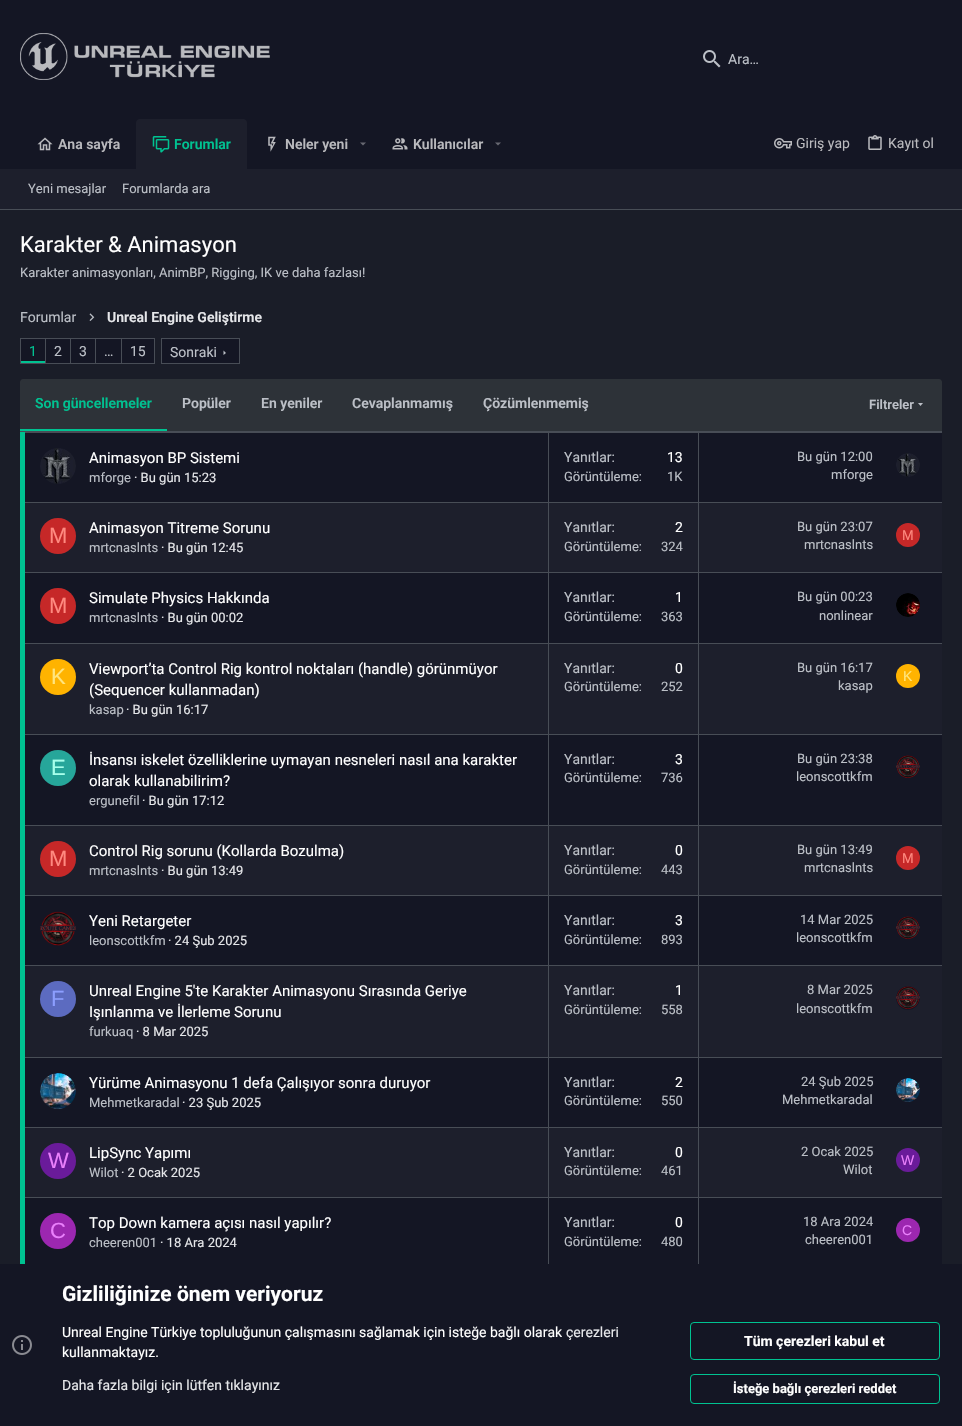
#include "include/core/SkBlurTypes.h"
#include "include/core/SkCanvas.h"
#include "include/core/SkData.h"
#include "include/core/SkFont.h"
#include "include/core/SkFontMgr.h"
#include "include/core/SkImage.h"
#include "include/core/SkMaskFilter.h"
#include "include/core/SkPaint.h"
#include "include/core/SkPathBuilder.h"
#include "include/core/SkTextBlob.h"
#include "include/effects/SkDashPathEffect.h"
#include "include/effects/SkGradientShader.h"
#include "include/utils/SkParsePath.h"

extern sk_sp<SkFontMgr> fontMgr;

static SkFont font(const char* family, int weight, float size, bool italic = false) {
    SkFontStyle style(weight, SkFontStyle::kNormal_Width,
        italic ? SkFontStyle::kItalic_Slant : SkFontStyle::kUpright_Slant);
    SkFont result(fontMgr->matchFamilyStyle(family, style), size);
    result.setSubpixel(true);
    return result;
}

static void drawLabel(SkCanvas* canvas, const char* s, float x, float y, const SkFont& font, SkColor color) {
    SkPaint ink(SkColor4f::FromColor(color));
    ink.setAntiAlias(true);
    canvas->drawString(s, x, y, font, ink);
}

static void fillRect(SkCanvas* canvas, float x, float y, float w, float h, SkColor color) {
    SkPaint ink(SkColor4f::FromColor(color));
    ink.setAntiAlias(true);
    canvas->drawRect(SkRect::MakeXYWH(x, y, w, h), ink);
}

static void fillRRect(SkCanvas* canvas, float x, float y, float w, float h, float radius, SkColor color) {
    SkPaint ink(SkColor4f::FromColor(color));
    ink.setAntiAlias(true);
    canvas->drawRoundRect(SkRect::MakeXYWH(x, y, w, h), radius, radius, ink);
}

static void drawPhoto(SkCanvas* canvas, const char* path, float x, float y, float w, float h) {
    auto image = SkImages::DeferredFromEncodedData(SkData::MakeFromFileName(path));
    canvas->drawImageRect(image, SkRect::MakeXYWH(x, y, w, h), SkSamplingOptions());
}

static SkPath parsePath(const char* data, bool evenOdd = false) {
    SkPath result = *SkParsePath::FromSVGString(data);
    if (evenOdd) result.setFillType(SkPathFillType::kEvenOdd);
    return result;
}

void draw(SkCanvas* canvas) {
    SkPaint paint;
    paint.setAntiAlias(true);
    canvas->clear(0xFF1A1D28);
    fillRect(canvas, 0, 0, 962, 119, 0xFF141624);
    drawPhoto(canvas, "assets/img1.png", 20, 33, 250, 47);
    drawPhoto(canvas, "assets/img2.png", 703, 50, 18, 18);
    SkFont font1 = font("Roboto", 400, 14);
    drawLabel(canvas, "Ara…", 728, 64, font1, 0xFFBCC0C7);
    fillRect(canvas, 0, 119, 962, 50, 0xFF141624);
    drawPhoto(canvas, "assets/img3.png", 37, 137, 16, 14);
    SkFont font2 = font("Roboto", 600, 14);
    drawLabel(canvas, "Ana sayfa", 58, 149, font2, 0xFFB9B9BD);
    paint.setColor(0xFF1D1F2C);
    canvas->drawPath(parsePath("M140 119H243C245 119 247 121 247 123V169H136V123C136 121 138 119 140 119Z"), paint);
    drawPhoto(canvas, "assets/img4.png", 152, 136, 18, 17);
    drawLabel(canvas, "Forumlar", 174, 149, font2, 0xFF00C291);
    drawPhoto(canvas, "assets/img5.png", 268, 136, 8, 16);
    drawLabel(canvas, "Neler yeni", 285, 149, font2, 0xFFB9B9BD);
    paint.setColor(0xFF676871);
    canvas->drawPath(parsePath("M360 142.5L363 145.5L366 142.5Z"), paint);
    drawPhoto(canvas, "assets/img6.png", 392, 138, 16, 12);
    drawLabel(canvas, "Kullanıcılar", 413, 149, font2, 0xFFB9B9BD);
    canvas->drawPath(parsePath("M495 142.5L498 145.5L501 142.5Z"), paint);
    drawPhoto(canvas, "assets/img7.png", 774, 138, 18, 11);
    drawLabel(canvas, "Giriş yap", 796, 148, font1, 0xFFB9B9BD);
    drawPhoto(canvas, "assets/img8.png", 868, 135, 14, 15);
    drawLabel(canvas, "Kayıt ol", 888, 148, font1, 0xFFB9B9BD);
    fillRect(canvas, 0, 169, 962, 40, 0xFF1D1F2C);
    fillRect(canvas, 0, 209, 962, 1, 0xFF484D56);
    SkFont font3 = font("Roboto", 400, 13);
    drawLabel(canvas, "Yeni mesajlar", 28, 193, font3, 0xFFBCC0C7);
    drawLabel(canvas, "Forumlarda ara", 122, 193, font3, 0xFFBCC0C7);
    SkFont font4 = font("Roboto", 400, 22);
    drawLabel(canvas, "Karakter & Animasyon", 20, 252, font4, 0xFFFFFFFF);
    drawLabel(canvas, "Karakter animasyonları, AnimBP, Rigging, IK ve daha fazlası!", 20, 277, font3, 0xFFBCC0C7);
    drawLabel(canvas, "Forumlar", 20, 322, font1, 0xFFBCC0C7);
    drawPhoto(canvas, "assets/img9.png", 89, 313, 6, 8);
    drawLabel(canvas, "Unreal Engine Geliştirme", 107, 322, font2, 0xFFE6E7EA);
    fillRect(canvas, 21, 339, 24, 22, 0xFF141624);
    fillRect(canvas, 21, 361, 24, 2, 0xFF00C291);
    fillRect(canvas, 20, 338, 101, 1, 0xFF484D56);
    fillRect(canvas, 20, 363, 101, 1, 0xFF484D56);
    fillRect(canvas, 20, 338, 1, 26, 0xFF484D56);
    drawLabel(canvas, "1", 29, 356, font1, 0xFF00C291);
    fillRect(canvas, 46, 339, 24, 24, 0xFF141624);
    fillRect(canvas, 45, 338, 1, 26, 0xFF484D56);
    drawLabel(canvas, "2", 54, 356, font1, 0xFFBCC0C7);
    fillRect(canvas, 71, 339, 24, 24, 0xFF141624);
    fillRect(canvas, 70, 338, 1, 26, 0xFF484D56);
    drawLabel(canvas, "3", 79, 356, font1, 0xFFBCC0C7);
    fillRect(canvas, 96, 339, 25, 24, 0xFF141624);
    fillRect(canvas, 95, 338, 1, 26, 0xFF484D56);
    drawLabel(canvas, "…", 104, 356, font1, 0xFFBCC0C7);
    paint.setColor(0xFF141624);
    canvas->drawRect(SkRect::MakeXYWH(121.5f, 338.5f, 33, 25), paint);
    paint.setStroke(true);
    paint.setStrokeWidth(1);
    paint.setColor(0xFF484D56);
    canvas->drawRect(SkRect::MakeXYWH(121.5f, 338.5f, 33, 25), paint);
    drawLabel(canvas, "15", 130, 356, font1, 0xFFBCC0C7);
    paint.setStroke(false);
    paint.setColor(0xFF141624);
    canvas->drawRect(SkRect::MakeXYWH(161.5f, 338.5f, 78, 25), paint);
    paint.setStroke(true);
    paint.setColor(0xFF484D56);
    canvas->drawRect(SkRect::MakeXYWH(161.5f, 338.5f, 78, 25), paint);
    drawLabel(canvas, "Sonraki", 170, 357, font1, 0xFFBCC0C7);
    paint.setStroke(false);
    paint.setColor(0xFFBCC0C7);
    canvas->drawPath(parsePath("M223.5 355L226 353L223.5 350.5Z"), paint);
    fillRRect(canvas, 20, 379, 922, 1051, 4, 0xFF141624);
    paint.setColor(0xFF2D3238);
    canvas->drawPath(parsePath("M23 379H939C940.5 379 942 380.5 942 382V432H20V382C20 380.5 21.5 379 23 379Z"), paint);
    fillRect(canvas, 20, 431, 922, 2, 0xFF484D56);
    fillRect(canvas, 20, 429, 147, 2, 0xFF00C291);
    drawLabel(canvas, "Son güncellemeler", 35, 408, font2, 0xFF00C291);
    drawLabel(canvas, "Popüler", 182, 408, font2, 0xFFBCC0C7);
    drawLabel(canvas, "En yeniler", 261, 408, font2, 0xFFBCC0C7);
    drawLabel(canvas, "Cevaplanmamış", 352, 408, font2, 0xFFBCC0C7);
    drawLabel(canvas, "Çözümlenmemiş", 483, 408, font2, 0xFFBCC0C7);
    SkFont font5 = font("Roboto", 600, 13);
    drawLabel(canvas, "Filtreler", 869, 409, font5, 0xFFBCC0C7);
    paint.setColor(0xFFBCC0C7);
    canvas->drawPath(parsePath("M918 403L920.5 406L923 403Z"), paint);
    fillRect(canvas, 20, 432, 5, 70, 0xFF00C291);
    drawPhoto(canvas, "assets/img10.png", 40, 448, 36, 36);
    SkFont font6 = font("Roboto", 400, 15);
    drawLabel(canvas, "Animasyon BP Sistemi", 89, 463, font6, 0xFFFFFFFF);
    drawLabel(canvas, "mforge", 89, 482, font3, 0xFFBCC0C7);
    drawLabel(canvas, "· Bu gün 15:23", 134, 482, font3, 0xFFE6E7EA);
    fillRect(canvas, 698, 432, 1, 71, 0xFF484D56);
    fillRect(canvas, 548, 432, 1, 71, 0xFF484D56);
    drawLabel(canvas, "Yanıtlar:", 564, 462, font1, 0xFFBCC0C7);
    drawLabel(canvas, "13", 667, 462, font1, 0xFFFFFFFF);
    drawLabel(canvas, "Görüntüleme:", 564, 481, font3, 0xFFBCC0C7);
    drawLabel(canvas, "1K", 667, 481, font3, 0xFFBCC0C7);
    drawLabel(canvas, "Bu gün 12:00", 797, 461, font3, 0xFFBCC0C7);
    drawLabel(canvas, "mforge", 831, 479, font3, 0xFFBCC0C7);
    drawPhoto(canvas, "assets/img11.png", 896, 453, 24, 24);
    fillRect(canvas, 25, 503, 917, 69, 0xFF1D1F2C);
    fillRect(canvas, 20, 502, 922, 1, 0xFF484D56);
    fillRect(canvas, 20, 502, 5, 70, 0xFF00C291);
    paint.setColor(0xFFC62828);
    canvas->drawCircle(58, 536, 18, paint);
    SkFont font7 = font("Liberation Sans", 400, 22);
    drawLabel(canvas, "M", 49, 543, font7, 0xFFFF8A80);
    drawLabel(canvas, "Animasyon Titreme Sorunu", 89, 533, font6, 0xFFFFFFFF);
    drawLabel(canvas, "mrtcnaslnts", 89, 552, font3, 0xFFBCC0C7);
    drawLabel(canvas, "· Bu gün 12:45", 161, 552, font3, 0xFFE6E7EA);
    fillRect(canvas, 698, 502, 1, 71, 0xFF484D56);
    fillRect(canvas, 548, 502, 1, 71, 0xFF484D56);
    drawLabel(canvas, "Yanıtlar:", 564, 532, font1, 0xFFBCC0C7);
    drawLabel(canvas, "2", 675, 532, font1, 0xFFFFFFFF);
    drawLabel(canvas, "Görüntüleme:", 564, 551, font3, 0xFFBCC0C7);
    drawLabel(canvas, "324", 661, 551, font3, 0xFFBCC0C7);
    drawLabel(canvas, "Bu gün 23:07", 797, 531, font3, 0xFFBCC0C7);
    drawLabel(canvas, "mrtcnaslnts", 804, 549, font3, 0xFFBCC0C7);
    canvas->drawCircle(908, 535, 12, paint);
    SkFont font8 = font("Liberation Sans", 400, 14);
    drawLabel(canvas, "M", 902, 540, font8, 0xFFFF8A80);
    fillRect(canvas, 20, 572, 922, 1, 0xFF484D56);
    fillRect(canvas, 20, 572, 5, 71, 0xFF00C291);
    canvas->drawCircle(58, 606, 18, paint);
    drawLabel(canvas, "M", 49, 613, font7, 0xFFFF8A80);
    drawLabel(canvas, "Simulate Physics Hakkında", 89, 603, font6, 0xFFFFFFFF);
    drawLabel(canvas, "mrtcnaslnts", 89, 622, font3, 0xFFBCC0C7);
    drawLabel(canvas, "· Bu gün 00:02", 161, 622, font3, 0xFFE6E7EA);
    fillRect(canvas, 698, 572, 1, 71, 0xFF484D56);
    fillRect(canvas, 548, 572, 1, 71, 0xFF484D56);
    drawLabel(canvas, "Yanıtlar:", 564, 602, font1, 0xFFBCC0C7);
    drawLabel(canvas, "1", 675, 602, font1, 0xFFFFFFFF);
    drawLabel(canvas, "Görüntüleme:", 564, 621, font3, 0xFFBCC0C7);
    drawLabel(canvas, "363", 661, 621, font3, 0xFFBCC0C7);
    drawLabel(canvas, "Bu gün 00:23", 797, 601, font3, 0xFFBCC0C7);
    drawLabel(canvas, "nonlinear", 819, 620, font3, 0xFFBCC0C7);
    drawPhoto(canvas, "assets/img12.png", 896, 593, 24, 24);
    fillRect(canvas, 25, 644, 917, 90, 0xFF1D1F2C);
    fillRect(canvas, 20, 643, 922, 1, 0xFF484D56);
    fillRect(canvas, 20, 643, 5, 91, 0xFF00C291);
    paint.setColor(0xFFFFB300);
    canvas->drawCircle(58, 677, 18, paint);
    drawLabel(canvas, "K", 51, 684, font7, 0xFFFFE57F);
    drawLabel(canvas, "Viewport’ta Control Rig kontrol noktaları (handle) görünmüyor", 89, 674, font6, 0xFFFFFFFF);
    drawLabel(canvas, "(Sequencer kullanmadan)", 89, 695, font6, 0xFFFFFFFF);
    drawLabel(canvas, "kasap", 89, 714, font3, 0xFFBCC0C7);
    drawLabel(canvas, "· Bu gün 16:17", 126, 714, font3, 0xFFE6E7EA);
    fillRect(canvas, 698, 643, 1, 91, 0xFF484D56);
    fillRect(canvas, 548, 643, 1, 91, 0xFF484D56);
    drawLabel(canvas, "Yanıtlar:", 564, 673, font1, 0xFFBCC0C7);
    drawLabel(canvas, "0", 675, 673, font1, 0xFFFFFFFF);
    drawLabel(canvas, "Görüntüleme:", 564, 691, font3, 0xFFBCC0C7);
    drawLabel(canvas, "252", 661, 691, font3, 0xFFBCC0C7);
    drawLabel(canvas, "Bu gün 16:17", 797, 672, font3, 0xFFBCC0C7);
    drawLabel(canvas, "kasap", 838, 690, font3, 0xFFBCC0C7);
    canvas->drawCircle(908, 676, 12, paint);
    drawLabel(canvas, "K", 903, 681, font8, 0xFFFFE57F);
    fillRect(canvas, 20, 734, 922, 1, 0xFF484D56);
    fillRect(canvas, 20, 734, 5, 91, 0xFF00C291);
    paint.setColor(0xFF26A69A);
    canvas->drawCircle(58, 768, 18, paint);
    drawLabel(canvas, "E", 51, 775, font7, 0xFFA7FFEB);
    drawLabel(canvas, "İnsansı iskelet özelliklerine uymayan nesneleri nasıl ana karakter", 89, 765, font6, 0xFFFFFFFF);
    drawLabel(canvas, "olarak kullanabilirim?", 89, 786, font6, 0xFFFFFFFF);
    drawLabel(canvas, "ergunefil", 89, 805, font3, 0xFFBCC0C7);
    drawLabel(canvas, "· Bu gün 17:12", 142, 805, font3, 0xFFE6E7EA);
    fillRect(canvas, 698, 734, 1, 92, 0xFF484D56);
    fillRect(canvas, 548, 734, 1, 92, 0xFF484D56);
    drawLabel(canvas, "Yanıtlar:", 564, 764, font1, 0xFFBCC0C7);
    drawLabel(canvas, "3", 675, 764, font1, 0xFFFFFFFF);
    drawLabel(canvas, "Görüntüleme:", 564, 782, font3, 0xFFBCC0C7);
    drawLabel(canvas, "736", 661, 782, font3, 0xFFBCC0C7);
    drawLabel(canvas, "Bu gün 23:38", 797, 763, font3, 0xFFBCC0C7);
    drawLabel(canvas, "leonscottkfm", 796, 781, font3, 0xFFBCC0C7);
    drawPhoto(canvas, "assets/img13.png", 896, 755, 24, 23);
    fillRect(canvas, 25, 826, 917, 69, 0xFF1D1F2C);
    fillRect(canvas, 20, 825, 922, 1, 0xFF484D56);
    fillRect(canvas, 20, 825, 5, 70, 0xFF00C291);
    paint.setColor(0xFFC62828);
    canvas->drawCircle(58, 859, 18, paint);
    drawLabel(canvas, "M", 49, 866, font7, 0xFFFF8A80);
    drawLabel(canvas, "Control Rig sorunu (Kollarda Bozulma)", 89, 856, font6, 0xFFFFFFFF);
    drawLabel(canvas, "mrtcnaslnts", 89, 875, font3, 0xFFBCC0C7);
    drawLabel(canvas, "· Bu gün 13:49", 161, 875, font3, 0xFFE6E7EA);
    fillRect(canvas, 698, 825, 1, 71, 0xFF484D56);
    fillRect(canvas, 548, 825, 1, 71, 0xFF484D56);
    drawLabel(canvas, "Yanıtlar:", 564, 855, font1, 0xFFBCC0C7);
    drawLabel(canvas, "0", 675, 855, font1, 0xFFFFFFFF);
    drawLabel(canvas, "Görüntüleme:", 564, 874, font3, 0xFFBCC0C7);
    drawLabel(canvas, "443", 661, 874, font3, 0xFFBCC0C7);
    drawLabel(canvas, "Bu gün 13:49", 797, 854, font3, 0xFFBCC0C7);
    drawLabel(canvas, "mrtcnaslnts", 804, 872, font3, 0xFFBCC0C7);
    canvas->drawCircle(908, 858, 12, paint);
    drawLabel(canvas, "M", 902, 863, font8, 0xFFFF8A80);
    fillRect(canvas, 20, 895, 922, 1, 0xFF484D56);
    fillRect(canvas, 20, 895, 5, 70, 0xFF00C291);
    drawPhoto(canvas, "assets/img14.png", 40, 911, 36, 35);
    drawLabel(canvas, "Yeni Retargeter", 89, 926, font6, 0xFFFFFFFF);
    drawLabel(canvas, "leonscottkfm", 89, 945, font3, 0xFFBCC0C7);
    drawLabel(canvas, "· 24 Şub 2025", 168, 945, font3, 0xFFE6E7EA);
    fillRect(canvas, 698, 895, 1, 71, 0xFF484D56);
    fillRect(canvas, 548, 895, 1, 71, 0xFF484D56);
    drawLabel(canvas, "Yanıtlar:", 564, 925, font1, 0xFFBCC0C7);
    drawLabel(canvas, "3", 675, 925, font1, 0xFFFFFFFF);
    drawLabel(canvas, "Görüntüleme:", 564, 944, font3, 0xFFBCC0C7);
    drawLabel(canvas, "893", 661, 944, font3, 0xFFBCC0C7);
    drawLabel(canvas, "14 Mar 2025", 800, 924, font3, 0xFFBCC0C7);
    drawLabel(canvas, "leonscottkfm", 796, 942, font3, 0xFFBCC0C7);
    drawPhoto(canvas, "assets/img15.png", 896, 916, 24, 23);
    fillRect(canvas, 25, 966, 917, 91, 0xFF1D1F2C);
    fillRect(canvas, 20, 965, 922, 1, 0xFF484D56);
    fillRect(canvas, 20, 965, 5, 92, 0xFF00C291);
    paint.setColor(0xFF5C6BC0);
    canvas->drawCircle(58, 999, 18, paint);
    drawLabel(canvas, "F", 51, 1006, font7, 0xFF8C9EFF);
    drawLabel(canvas, "Unreal Engine 5'te Karakter Animasyonu Sırasında Geriye", 89, 996, font6, 0xFFFFFFFF);
    drawLabel(canvas, "Işınlanma ve İlerleme Sorunu", 89, 1017, font6, 0xFFFFFFFF);
    drawLabel(canvas, "furkuaq", 89, 1036, font3, 0xFFBCC0C7);
    drawLabel(canvas, "· 8 Mar 2025", 136, 1036, font3, 0xFFE6E7EA);
    fillRect(canvas, 698, 965, 1, 92, 0xFF484D56);
    fillRect(canvas, 548, 965, 1, 92, 0xFF484D56);
    drawLabel(canvas, "Yanıtlar:", 564, 995, font1, 0xFFBCC0C7);
    drawLabel(canvas, "1", 675, 995, font1, 0xFFFFFFFF);
    drawLabel(canvas, "Görüntüleme:", 564, 1014, font3, 0xFFBCC0C7);
    drawLabel(canvas, "558", 661, 1014, font3, 0xFFBCC0C7);
    drawLabel(canvas, "8 Mar 2025", 807, 994, font3, 0xFFBCC0C7);
    drawLabel(canvas, "leonscottkfm", 796, 1013, font3, 0xFFBCC0C7);
    paint.setColor(0xFF141624);
    canvas->drawCircle(908, 998, 12, paint);
    drawPhoto(canvas, "assets/img16.png", 896, 986, 24, 23);
    fillRect(canvas, 20, 1057, 922, 1, 0xFF484D56);
    fillRect(canvas, 20, 1057, 5, 70, 0xFF00C291);
    drawPhoto(canvas, "assets/img17.png", 40, 1073, 36, 36);
    drawLabel(canvas, "Yürüme Animasyonu 1 defa Çalışıyor sonra duruyor", 89, 1088, font6, 0xFFFFFFFF);
    drawLabel(canvas, "Mehmetkaradal", 89, 1107, font3, 0xFFBCC0C7);
    drawLabel(canvas, "· 23 Şub 2025", 182, 1107, font3, 0xFFE6E7EA);
    fillRect(canvas, 698, 1057, 1, 70, 0xFF484D56);
    fillRect(canvas, 548, 1057, 1, 70, 0xFF484D56);
    drawLabel(canvas, "Yanıtlar:", 564, 1087, font1, 0xFFBCC0C7);
    drawLabel(canvas, "2", 675, 1087, font1, 0xFFFFFFFF);
    drawLabel(canvas, "Görüntüleme:", 564, 1105, font3, 0xFFBCC0C7);
    drawLabel(canvas, "550", 661, 1105, font3, 0xFFBCC0C7);
    drawLabel(canvas, "24 Şub 2025", 801, 1086, font3, 0xFFBCC0C7);
    drawLabel(canvas, "Mehmetkaradal", 782, 1104, font3, 0xFFBCC0C7);
    drawPhoto(canvas, "assets/img18.png", 896, 1078, 24, 24);
    fillRect(canvas, 25, 1128, 917, 69, 0xFF1D1F2C);
    fillRect(canvas, 20, 1127, 922, 1, 0xFF484D56);
    fillRect(canvas, 20, 1127, 5, 70, 0xFF00C291);
    paint.setColor(0xFF6A1B9A);
    canvas->drawCircle(58, 1161, 18, paint);
    drawLabel(canvas, "W", 48, 1168, font7, 0xFFEA80FC);
    drawLabel(canvas, "LipSync Yapımı", 89, 1158, font6, 0xFFFFFFFF);
    drawLabel(canvas, "Wilot", 89, 1177, font3, 0xFFBCC0C7);
    drawLabel(canvas, "· 2 Ocak 2025", 121, 1177, font3, 0xFFE6E7EA);
    fillRect(canvas, 698, 1127, 1, 70, 0xFF484D56);
    fillRect(canvas, 548, 1127, 1, 70, 0xFF484D56);
    drawLabel(canvas, "Yanıtlar:", 564, 1157, font1, 0xFFBCC0C7);
    drawLabel(canvas, "0", 675, 1157, font1, 0xFFFFFFFF);
    drawLabel(canvas, "Görüntüleme:", 564, 1175, font3, 0xFFBCC0C7);
    drawLabel(canvas, "461", 661, 1175, font3, 0xFFBCC0C7);
    drawLabel(canvas, "2 Ocak 2025", 801, 1156, font3, 0xFFBCC0C7);
    drawLabel(canvas, "Wilot", 843, 1174, font3, 0xFFBCC0C7);
    canvas->drawCircle(908, 1160, 12, paint);
    drawLabel(canvas, "W", 901, 1165, font8, 0xFFEA80FC);
    fillRect(canvas, 20, 1197, 922, 1, 0xFF484D56);
    fillRect(canvas, 20, 1197, 5, 70, 0xFF00C291);
    paint.setColor(0xFF9C27B0);
    canvas->drawCircle(58, 1231, 18, paint);
    drawLabel(canvas, "C", 50, 1238, font7, 0xFFEA80FC);
    drawLabel(canvas, "Top Down kamera açısı nasıl yapılır?", 89, 1228, font6, 0xFFFFFFFF);
    drawLabel(canvas, "cheeren001", 89, 1247, font3, 0xFFBCC0C7);
    drawLabel(canvas, "· 18 Ara 2024", 160, 1247, font3, 0xFFE6E7EA);
    fillRect(canvas, 698, 1197, 1, 71, 0xFF484D56);
    fillRect(canvas, 548, 1197, 1, 71, 0xFF484D56);
    drawLabel(canvas, "Yanıtlar:", 564, 1227, font1, 0xFFBCC0C7);
    drawLabel(canvas, "0", 675, 1227, font1, 0xFFFFFFFF);
    drawLabel(canvas, "Görüntüleme:", 564, 1246, font3, 0xFFBCC0C7);
    drawLabel(canvas, "480", 661, 1246, font3, 0xFFBCC0C7);
    drawLabel(canvas, "18 Ara 2024", 803, 1226, font3, 0xFFBCC0C7);
    drawLabel(canvas, "cheeren001", 805, 1244, font3, 0xFFBCC0C7);
    canvas->drawCircle(908, 1230, 12, paint);
    drawLabel(canvas, "C", 902, 1235, font8, 0xFFEA80FC);
    fillRect(canvas, 0, 1264, 962, 162, 0xFF141624);
    drawPhoto(canvas, "assets/img19.png", 12, 1335, 20, 20);
    SkFont font9 = font("Roboto", 700, 21);
    drawLabel(canvas, "Gizliliğinize önem veriyoruz", 62, 1301, font9, 0xFFFFFFFF);
    drawLabel(canvas, "Unreal Engine Türkiye topluluğunun çalışmasını sağlamak için isteğe bağlı olarak", 62, 1337, font1, 0xFFFFFFFF);
    drawLabel(canvas, "çerezleri", 566, 1337, font1, 0xFFE6E7EA);
    drawLabel(canvas, "kullanmaktayız.", 62, 1357, font1, 0xFFFFFFFF);
    drawLabel(canvas, "Daha fazla bilgi için lütfen tıklayınız", 62, 1390, font1, 0xFFE6E7EA);
    paint.setStroke(true);
    paint.setColor(0xFF00C291);
    canvas->drawRoundRect(SkRect::MakeXYWH(690.5f, 1322.5f, 249, 37), 3.5f, 3.5f, paint);
    SkFont font10 = font("Roboto", 700, 14);
    drawLabel(canvas, "Tüm çerezleri kabul et", 744, 1346, font10, 0xFFFFFFFF);
    canvas->drawRoundRect(SkRect::MakeXYWH(690.5f, 1374.5f, 249, 29), 3.5f, 3.5f, paint);
    SkFont font11 = font("Roboto", 700, 13);
    drawLabel(canvas, "İsteğe bağlı çerezleri reddet", 733, 1393, font11, 0xFFFFFFFF);
}
